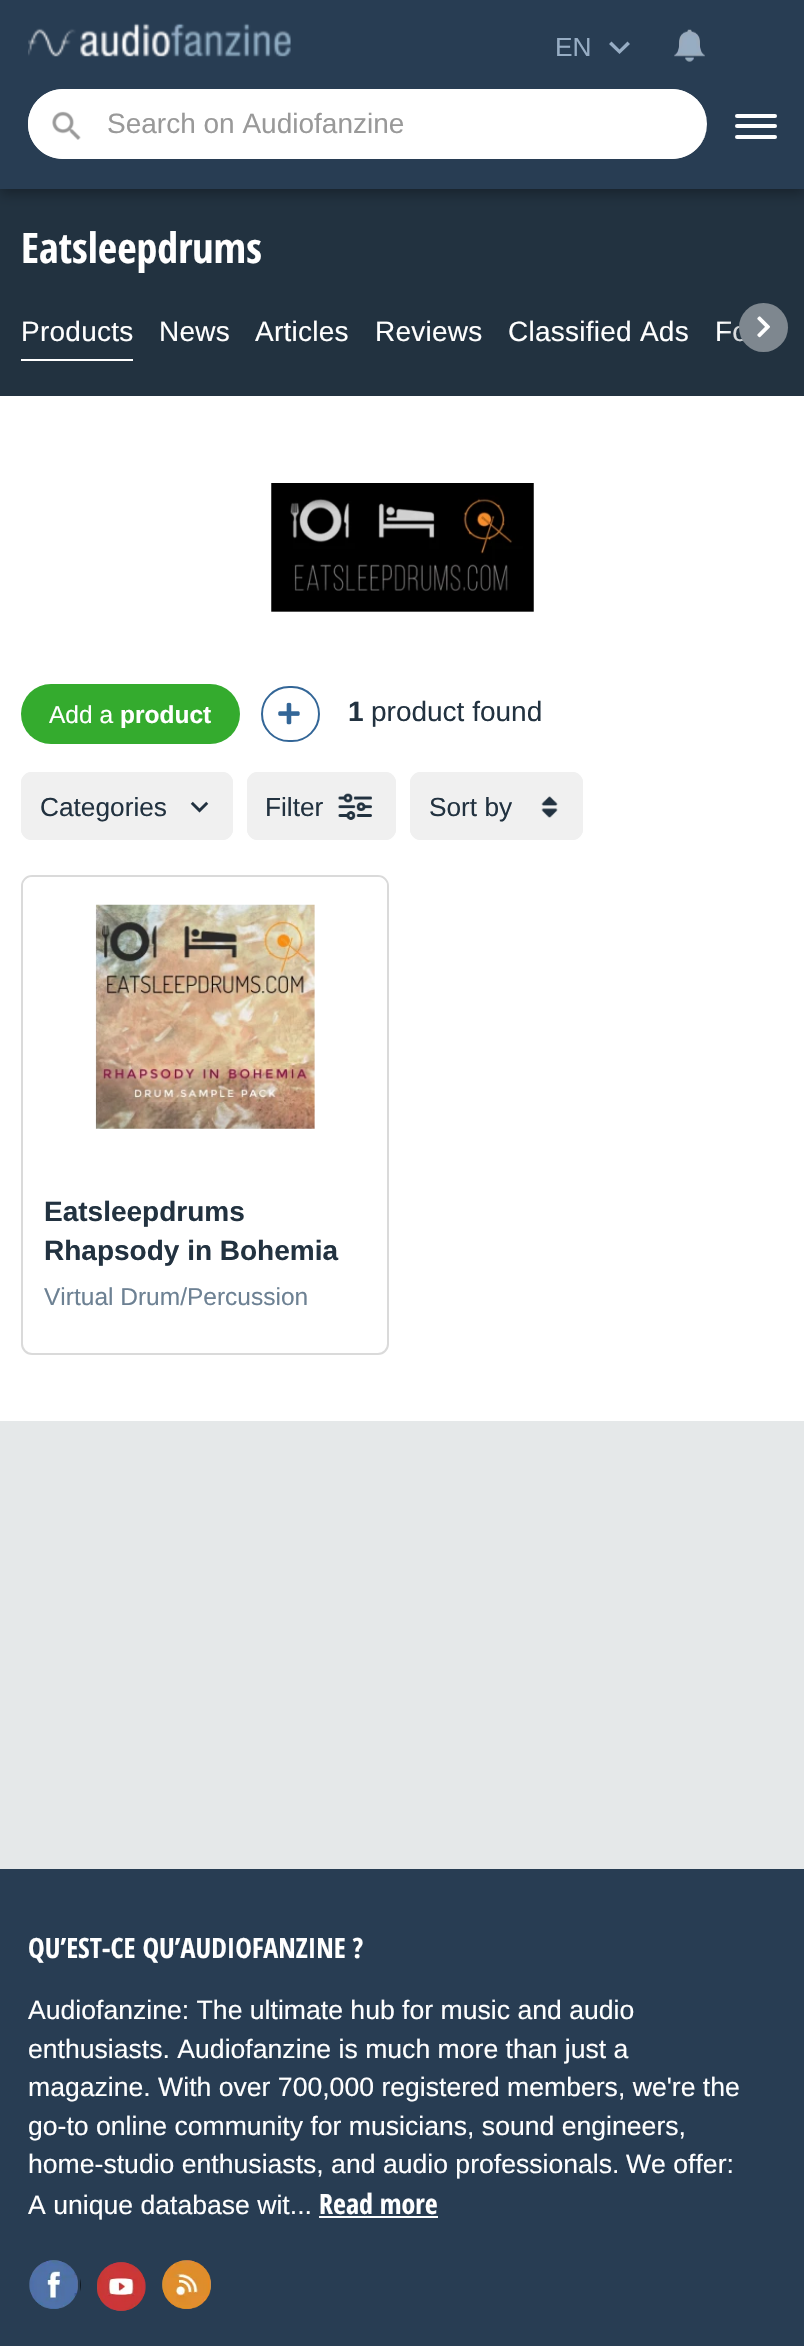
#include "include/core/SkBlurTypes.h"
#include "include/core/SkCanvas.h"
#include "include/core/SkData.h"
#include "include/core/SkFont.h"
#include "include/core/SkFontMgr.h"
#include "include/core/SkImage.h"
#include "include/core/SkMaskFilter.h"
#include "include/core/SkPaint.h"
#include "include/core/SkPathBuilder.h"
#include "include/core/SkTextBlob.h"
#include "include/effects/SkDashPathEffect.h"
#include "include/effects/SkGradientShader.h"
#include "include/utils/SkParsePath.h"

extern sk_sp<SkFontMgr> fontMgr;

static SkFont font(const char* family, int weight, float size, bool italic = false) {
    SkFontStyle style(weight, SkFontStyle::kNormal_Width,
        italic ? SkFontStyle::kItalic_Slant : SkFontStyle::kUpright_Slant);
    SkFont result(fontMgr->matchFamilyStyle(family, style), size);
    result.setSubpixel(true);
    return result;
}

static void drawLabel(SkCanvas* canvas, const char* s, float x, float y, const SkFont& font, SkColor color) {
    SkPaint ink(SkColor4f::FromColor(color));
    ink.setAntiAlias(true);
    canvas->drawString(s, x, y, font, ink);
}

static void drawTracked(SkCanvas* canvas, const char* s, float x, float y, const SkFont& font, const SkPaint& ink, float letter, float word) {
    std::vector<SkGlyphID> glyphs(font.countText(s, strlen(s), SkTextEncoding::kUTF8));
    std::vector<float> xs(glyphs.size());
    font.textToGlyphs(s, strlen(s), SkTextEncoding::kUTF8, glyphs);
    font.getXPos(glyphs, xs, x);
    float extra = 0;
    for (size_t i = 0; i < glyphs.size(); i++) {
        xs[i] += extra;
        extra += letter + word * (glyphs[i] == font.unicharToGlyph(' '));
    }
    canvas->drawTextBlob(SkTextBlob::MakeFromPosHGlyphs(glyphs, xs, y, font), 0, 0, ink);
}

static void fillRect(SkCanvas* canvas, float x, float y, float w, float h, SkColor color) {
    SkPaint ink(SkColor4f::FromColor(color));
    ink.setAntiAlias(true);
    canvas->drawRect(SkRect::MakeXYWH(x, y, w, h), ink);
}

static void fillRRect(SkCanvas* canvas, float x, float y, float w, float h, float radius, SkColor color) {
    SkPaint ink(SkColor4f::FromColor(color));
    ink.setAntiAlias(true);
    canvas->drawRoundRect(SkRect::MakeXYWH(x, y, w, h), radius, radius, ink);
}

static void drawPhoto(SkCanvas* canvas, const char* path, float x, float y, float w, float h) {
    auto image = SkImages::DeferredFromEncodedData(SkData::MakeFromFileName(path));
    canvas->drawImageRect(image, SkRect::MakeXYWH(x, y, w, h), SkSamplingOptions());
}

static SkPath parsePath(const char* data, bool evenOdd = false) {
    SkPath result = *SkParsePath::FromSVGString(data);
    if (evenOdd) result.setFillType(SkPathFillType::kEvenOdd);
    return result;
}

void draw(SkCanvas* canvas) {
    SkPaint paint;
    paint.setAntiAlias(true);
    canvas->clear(0xFFFFFFFF);
    fillRect(canvas, 0, 189, 804, 207, 0xFF223240);
    paint.setColor(0x4D000000);
    paint.setMaskFilter(SkMaskFilter::MakeBlur(kNormal_SkBlurStyle, 6));
    canvas->drawRect(SkRect::MakeXYWH(0, 5, 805, 189), paint);
    paint.setMaskFilter(nullptr);
    fillRect(canvas, 0, 0, 804, 189, 0xFF283D53);
    drawPhoto(canvas, "assets/img1.png", 28, 23, 263, 34);
    drawPhoto(canvas, "assets/img2.png", 674, 29, 31, 33);
    paint.setColor(0xFF97ADC4);
    canvas->drawPath(parsePath("M627.5 41.5L619.5 49.5L611.5 41.5L609 44L619.5 54L630 44Z"), paint);
    SkFont font1 = font("Liberation Sans", 400, 26.25f);
    drawLabel(canvas, "EN", 555, 56, font1, 0xFF97ADC4);
    fillRRect(canvas, 28, 89, 679, 70, 35, 0xFFFFFFFF);
    paint.setColor(0xFFFFFFFF);
    canvas->drawPath(parsePath("M63 89H672C691 89 707 105 707 124C707 144 691 159 672 159H63C44 159 28 144 28 124C28 105 44 89 63 89ZM63 91H672C691 91 707 106 707 124C707 143 691 158 672 158H63C45 158 30 143 30 124C30 106 45 91 63 91Z", true), paint);
    drawPhoto(canvas, "assets/img3.png", 52, 111, 29, 29);
    SkFont font2 = font("Liberation Sans", 400, 28);
    drawLabel(canvas, "Search on Audiofanzine", 107, 133, font2, 0xFF999999);
    fillRRect(canvas, 735, 135, 42, 4, 2, 0xFFFFFFFF);
    fillRRect(canvas, 735, 114, 42, 4, 2, 0xFFFFFFFF);
    fillRRect(canvas, 735, 124, 42, 4, 2, 0xFFFFFFFF);
    SkFont font3 = font("Open Sans Condensed", 700, 42);
    drawLabel(canvas, "Eatsleepdrums", 21, 263, font3, 0xFFFFFFFF);
    fillRect(canvas, 21, 359, 112, 2, 0xFFFFFFFF);
    drawTracked(canvas, "Products", 21, 341, font2, paint, 0.25f, 0);
    drawTracked(canvas, "News", 159, 341, font2, paint, 0.25f, 0);
    drawTracked(canvas, "Articles", 255, 341, font2, paint, 0.25f, 0);
    drawTracked(canvas, "Reviews", 375, 341, font2, paint, 0.25f, 0);
    drawTracked(canvas, "Classified Ads", 508, 341, font2, paint, 0.25f, 0);
    drawTracked(canvas, "Fo", 715, 341, font2, paint, 0.25f, 0);
    {
        const SkColor colors[] = {0xFF213240, 0x00213240};
        const float stops[] = {0, 1};
        const SkPoint ends[] = {{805, 344}, {721, 344}};
        paint.setShader(SkGradientShader::MakeLinear(ends, colors, stops, 2, SkTileMode::kClamp));
        paint.setAlpha(255);
    }
    canvas->drawRect(SkRect::MakeXYWH(723, 321, 24, 21), paint);
    paint.setShader(nullptr);
    paint.setColor(0xFF7E878F);
    canvas->drawCircle(763.5f, 327.5f, 24.5f, paint);
    drawPhoto(canvas, "assets/img4.png", 757, 316, 13, 22);
    drawPhoto(canvas, "assets/img5.png", 271, 483, 263, 129);
    fillRRect(canvas, 21, 684, 219, 60, 30, 0xFF34AB2E);
    SkFont font4 = font("Liberation Sans", 400, 24.5f);
    drawLabel(canvas, "Add a", 49, 723, font4, 0xFFFFFFFF);
    SkFont font5 = font("Liberation Sans", 700, 24.5f);
    drawLabel(canvas, "product", 120, 723, font5, 0xFFFFFFFF);
    paint.setStroke(true);
    paint.setStrokeWidth(2);
    paint.setColor(0xFF336697);
    canvas->drawRoundRect(SkRect::MakeXYWH(262, 687, 57, 54), 27, 27, paint);
    drawPhoto(canvas, "assets/img6.png", 278, 702, 22, 23);
    SkFont font6 = font("Liberation Sans", 700, 28);
    drawLabel(canvas, "1", 348, 721, font6, 0xFF223240);
    drawLabel(canvas, "product found", 371, 721, font2, 0xFF223240);
    fillRRect(canvas, 21, 772, 212, 68, 11, 0xFFF0F0F0);
    drawPhoto(canvas, "assets/img7.png", 190, 801, 19, 12);
    paint.setColor(0xFFF0F0F0);
    canvas->drawRoundRect(SkRect::MakeXYWH(22, 773, 210, 66), 10, 10, paint);
    drawLabel(canvas, "Categories", 40, 816, font1, 0xFF223240);
    fillRRect(canvas, 247, 772, 149, 68, 11, 0xFFF0F0F0);
    drawPhoto(canvas, "assets/img8.png", 338, 793, 34, 27);
    canvas->drawRoundRect(SkRect::MakeXYWH(248, 773, 147, 66), 10, 10, paint);
    drawLabel(canvas, "Filter", 265, 816, font1, 0xFF223240);
    fillRRect(canvas, 410, 772, 173, 68, 11, 0xFFF0F0F0);
    drawPhoto(canvas, "assets/img9.png", 541, 796, 17, 22);
    canvas->drawRoundRect(SkRect::MakeXYWH(411, 773, 171, 66), 10, 10, paint);
    drawLabel(canvas, "Sort by", 429, 816, font1, 0xFF223240);
    paint.setColor(0xFFDADADA);
    canvas->drawRoundRect(SkRect::MakeXYWH(22, 876, 366, 478), 10, 10, paint);
    paint.setStroke(false);
    paint.setColor(0xFFFFFFFF);
    canvas->drawPath(parsePath("M32 877H378C383 877 387 881 387 886V1157H23V886C23 881 27 877 32 877Z"), paint);
    drawPhoto(canvas, "assets/img10.png", 95, 904, 220, 225);
    drawLabel(canvas, "Eatsleepdrums", 44, 1221, font6, 0xFF223240);
    drawLabel(canvas, "Rhapsody in Bohemia", 44, 1260, font6, 0xFF223240);
    drawLabel(canvas, "Virtual Drum/Percussion", 44, 1305, font4, 0xFF6D8193);
    fillRect(canvas, 0, 1421, 804, 448, 0xFFE5E8E9);
    fillRect(canvas, 0, 1869, 804, 477, 0xFF283D53);
    SkFont font7 = font("Open Sans Condensed", 700, 28);
    drawLabel(canvas, "QU’EST-CE QU’AUDIOFANZINE ?", 28, 1958, font7, 0xFFFFFFFF);
    SkFont font8 = font("Liberation Sans", 400, 26.6f);
    drawLabel(canvas, "Audiofanzine: The ultimate hub for music and audio", 28, 2019, font8, 0xFFFFFFFF);
    drawLabel(canvas, "enthusiasts. Audiofanzine is much more than just a", 28, 2058, font8, 0xFFFFFFFF);
    drawLabel(canvas, "magazine. With over 700,000 registered members, we're the", 28, 2096, font8, 0xFFFFFFFF);
    drawLabel(canvas, "go-to online community for musicians, sound engineers,", 28, 2135, font8, 0xFFFFFFFF);
    drawLabel(canvas, "home-studio enthusiasts, and audio professionals.", 28, 2173, font8, 0xFFFFFFFF);
    drawLabel(canvas, "We offer:", 626, 2173, font8, 0xFFFFFFFF);
    drawLabel(canvas, "A unique database wit...", 28, 2214, font8, 0xFFFFFFFF);
    drawLabel(canvas, "Read more", 319, 2214, font7, 0xFFFFFFFF);
    fillRect(canvas, 319, 2216, 119, 2, 0xFFFFFFFF);
    drawPhoto(canvas, "assets/img11.png", 29, 2260, 52, 49);
    drawPhoto(canvas, "assets/img12.png", 97, 2262, 49, 49);
    drawPhoto(canvas, "assets/img13.png", 162, 2260, 49, 49);
}
